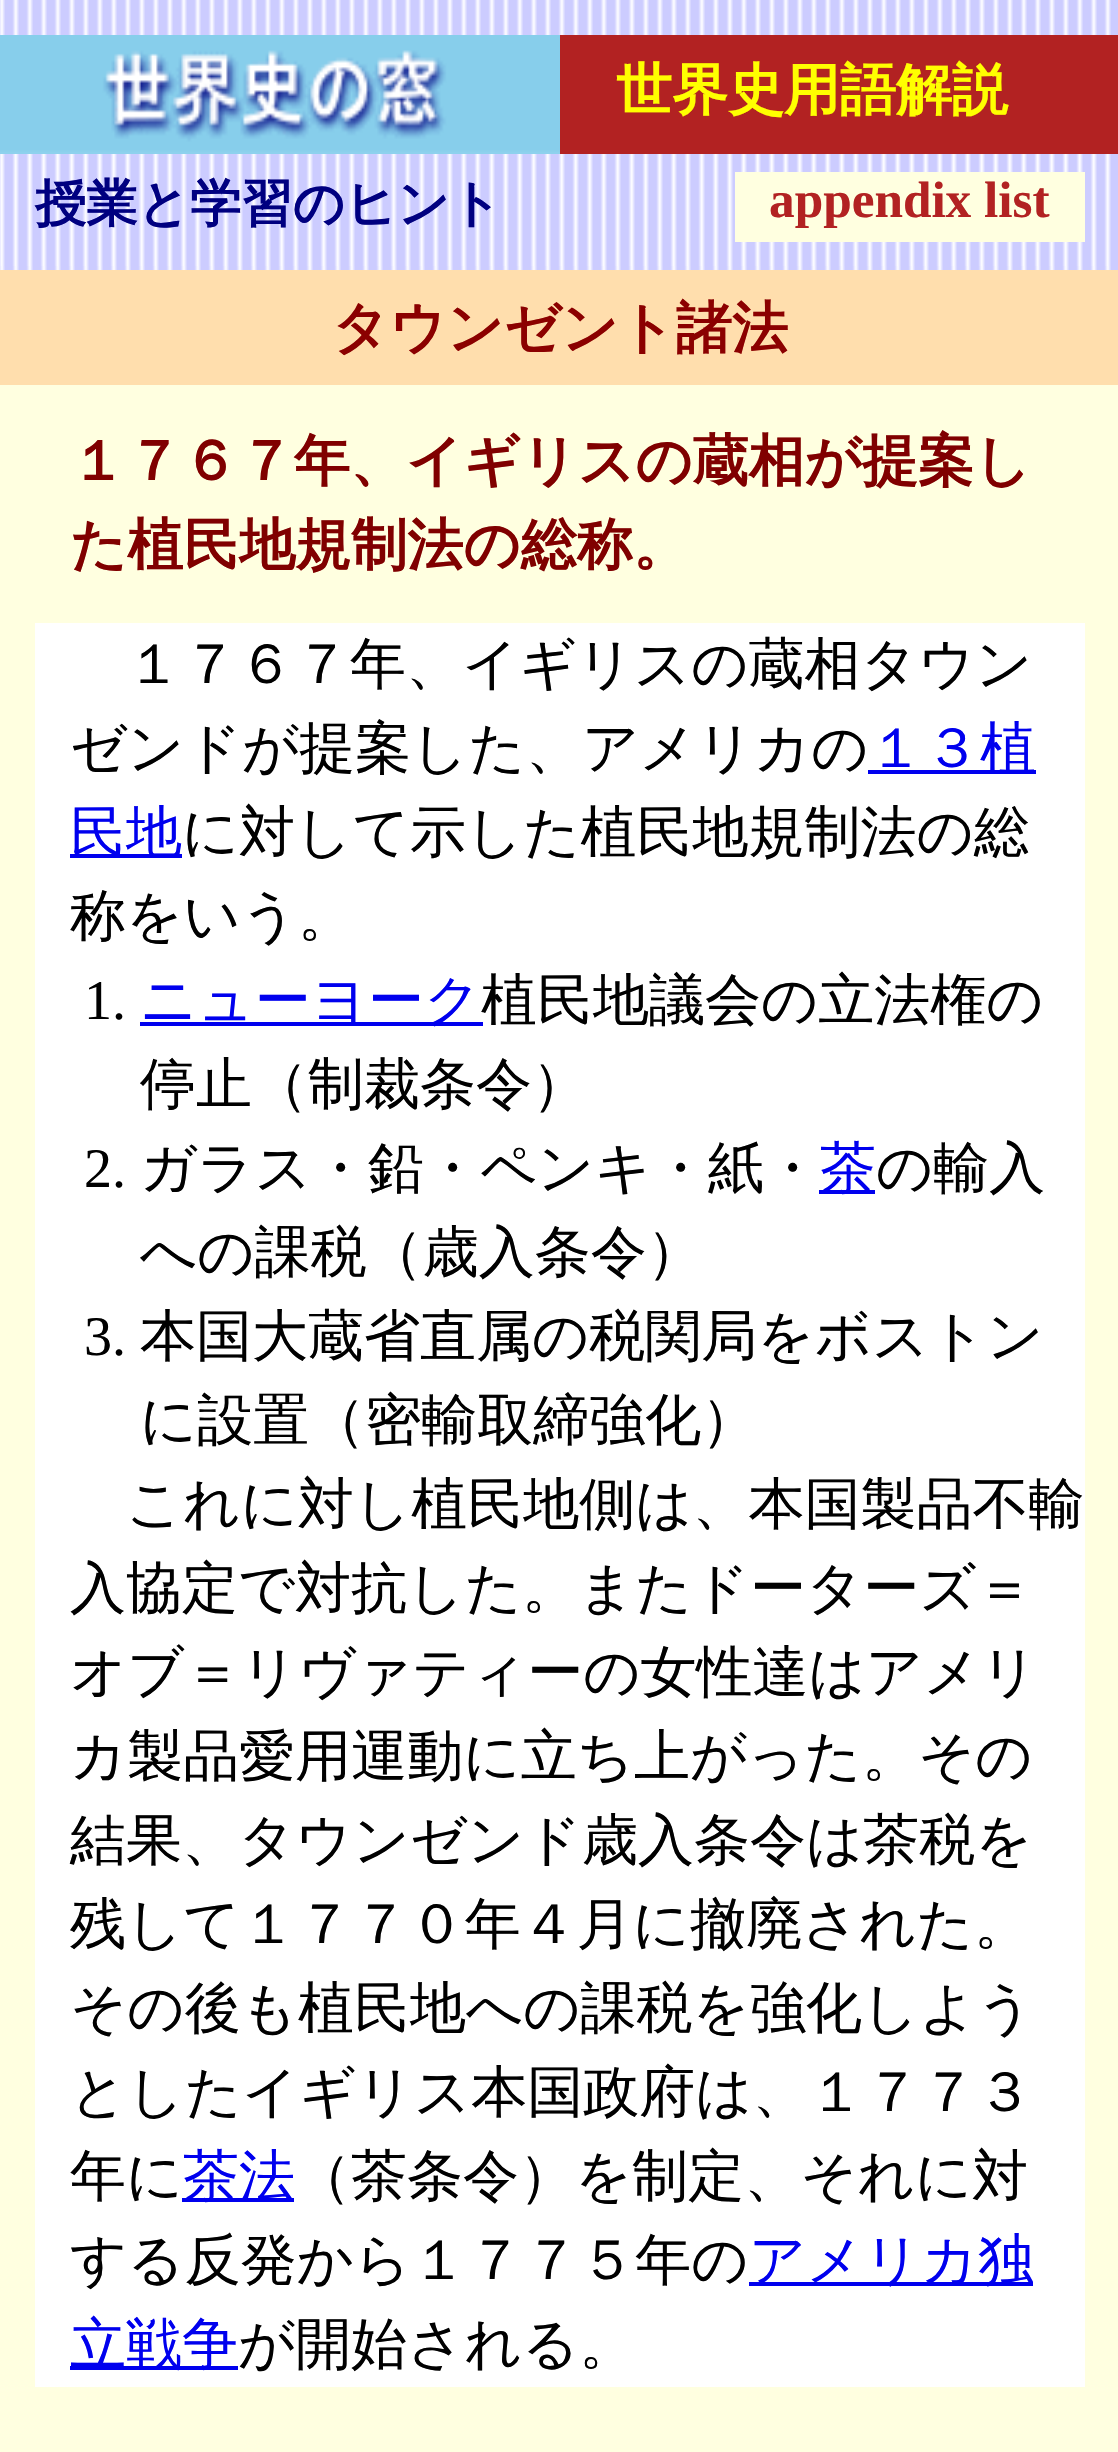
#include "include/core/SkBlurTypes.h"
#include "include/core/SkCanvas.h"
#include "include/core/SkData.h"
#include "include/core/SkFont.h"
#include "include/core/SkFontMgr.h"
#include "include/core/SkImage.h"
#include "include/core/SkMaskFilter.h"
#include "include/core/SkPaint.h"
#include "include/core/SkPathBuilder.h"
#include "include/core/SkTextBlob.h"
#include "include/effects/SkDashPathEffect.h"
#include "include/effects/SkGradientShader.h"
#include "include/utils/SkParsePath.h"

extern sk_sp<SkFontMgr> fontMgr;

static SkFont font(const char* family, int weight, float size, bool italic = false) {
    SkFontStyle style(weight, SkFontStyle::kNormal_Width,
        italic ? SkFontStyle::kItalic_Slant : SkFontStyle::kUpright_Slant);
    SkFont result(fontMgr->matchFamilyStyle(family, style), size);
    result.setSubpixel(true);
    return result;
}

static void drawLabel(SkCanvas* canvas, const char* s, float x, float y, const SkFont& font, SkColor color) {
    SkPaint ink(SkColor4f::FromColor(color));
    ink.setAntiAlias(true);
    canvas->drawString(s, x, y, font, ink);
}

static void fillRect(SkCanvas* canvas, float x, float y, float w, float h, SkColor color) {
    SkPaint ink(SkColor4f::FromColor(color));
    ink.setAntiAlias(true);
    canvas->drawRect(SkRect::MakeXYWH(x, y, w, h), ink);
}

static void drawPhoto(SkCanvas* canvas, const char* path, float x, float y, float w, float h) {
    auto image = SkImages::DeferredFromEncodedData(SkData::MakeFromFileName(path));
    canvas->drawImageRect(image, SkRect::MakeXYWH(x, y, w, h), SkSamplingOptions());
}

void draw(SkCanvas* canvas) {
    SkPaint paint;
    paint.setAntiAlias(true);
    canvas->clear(0xFFFFFFFF);
    drawPhoto(canvas, "assets/img1.png", 0, 0, 1118, 270);
    fillRect(canvas, 560, 35, 558, 119, 0xFFB22222);
    drawPhoto(canvas, "assets/img2.png", 0, 35, 560, 119);
    SkFont font1 = font("WenQuanYi Zen Hei", 700, 56);
    drawLabel(canvas, "世界史用語解説", 616, 109, font1, 0xFFFFFF00);
    drawPhoto(canvas, "assets/img3.png", 0, 154, 1118, 112);
    SkFont font2 = font("WenQuanYi Zen Hei", 700, 51.25f);
    drawLabel(canvas, "授業と学習のヒント", 35, 221, font2, 0xFF000080);
    fillRect(canvas, 735, 172, 350, 70, 0xFFFFFFE0);
    SkFont font3 = font("Liberation Serif", 700, 51.25f);
    drawLabel(canvas, "appendix list", 769, 217, font3, 0xFFB22222);
    fillRect(canvas, 0, 385, 1118, 2067, 0xFFFFFFE0);
    fillRect(canvas, 0, 270, 1118, 115, 0xFFFFDEAD);
    drawLabel(canvas, "タウンゼント諸法", 332, 347, font1, 0xFF8B0000);
    drawLabel(canvas, "１７６７年、イギリスの蔵相が提案し", 70, 480, font1, 0xFF800000);
    drawLabel(canvas, "た植民地規制法の総称。", 70, 564, font1, 0xFF800000);
    fillRect(canvas, 35, 623, 1050, 1764, 0xFFFFFFFF);
    SkFont font4 = font("WenQuanYi Zen Hei", 500, 56);
    drawLabel(canvas, "１７６７年、イギリスの蔵相タウン", 126, 683, font4, 0xFF000000);
    drawLabel(canvas, "ゼンドが提案した、アメリカの", 70, 767, font4, 0xFF000000);
    fillRect(canvas, 868, 770, 168, 4, 0xFF0000EE);
    drawLabel(canvas, "１３植", 868, 767, font4, 0xFF0000EE);
    fillRect(canvas, 70, 854, 112, 4, 0xFF0000EE);
    drawLabel(canvas, "民地", 70, 851, font4, 0xFF0000EE);
    drawLabel(canvas, "に対して示した植民地規制法の総", 182, 851, font4, 0xFF000000);
    drawLabel(canvas, "称をいう。", 70, 935, font4, 0xFF000000);
    SkFont font5 = font("Liberation Serif", 400, 56);
    drawLabel(canvas, "1.", 84, 1019, font5, 0xFF000000);
    fillRect(canvas, 140, 1022, 343, 4, 0xFF0000EE);
    drawLabel(canvas, "ニューヨーク", 140, 1019, font4, 0xFF0000EE);
    drawLabel(canvas, "植民地議会の立法権の", 481, 1019, font4, 0xFF000000);
    drawLabel(canvas, "停止（制裁条令）", 140, 1103, font4, 0xFF000000);
    drawLabel(canvas, "2.", 84, 1187, font5, 0xFF000000);
    drawLabel(canvas, "ガラス・鉛・ペンキ・紙・", 140, 1187, font4, 0xFF000000);
    fillRect(canvas, 819, 1190, 56, 4, 0xFF0000EE);
    drawLabel(canvas, "茶", 820, 1187, font4, 0xFF0000EE);
    drawLabel(canvas, "の輸入", 876, 1187, font4, 0xFF000000);
    drawLabel(canvas, "への課税（歳入条令）", 140, 1271, font4, 0xFF000000);
    drawLabel(canvas, "3.", 84, 1355, font5, 0xFF000000);
    drawLabel(canvas, "本国大蔵省直属の税関局をボストン", 140, 1355, font4, 0xFF000000);
    drawLabel(canvas, "に設置（密輸取締強化）", 140, 1439, font4, 0xFF000000);
    drawLabel(canvas, "これに対し植民地側は、本国製品不輸", 126, 1523, font4, 0xFF000000);
    drawLabel(canvas, "入協定で対抗した。またドーターズ＝", 70, 1607, font4, 0xFF000000);
    drawLabel(canvas, "オブ＝リヴァティーの女性達はアメリ", 70, 1691, font4, 0xFF000000);
    drawLabel(canvas, "カ製品愛用運動に立ち上がった。その", 70, 1775, font4, 0xFF000000);
    drawLabel(canvas, "結果、タウンゼンド歳入条令は茶税を", 70, 1859, font4, 0xFF000000);
    drawLabel(canvas, "残して１７７０年４月に撤廃された。", 70, 1943, font4, 0xFF000000);
    drawLabel(canvas, "その後も植民地への課税を強化しよう", 70, 2027, font4, 0xFF000000);
    drawLabel(canvas, "としたイギリス本国政府は、１７７３", 70, 2111, font4, 0xFF000000);
    drawLabel(canvas, "年に", 70, 2195, font4, 0xFF000000);
    fillRect(canvas, 182, 2198, 112, 4, 0xFF0000EE);
    drawLabel(canvas, "茶法", 183, 2195, font4, 0xFF0000EE);
    drawLabel(canvas, "（茶条令）を制定、それに対", 295, 2195, font4, 0xFF000000);
    drawLabel(canvas, "する反発から１７７５年の", 70, 2279, font4, 0xFF000000);
    fillRect(canvas, 749, 2282, 284, 4, 0xFF0000EE);
    drawLabel(canvas, "アメリカ独", 749, 2279, font4, 0xFF0000EE);
    fillRect(canvas, 70, 2366, 168, 4, 0xFF0000EE);
    drawLabel(canvas, "立戦争", 70, 2363, font4, 0xFF0000EE);
    drawLabel(canvas, "が開始される。", 238, 2363, font4, 0xFF000000);
}
